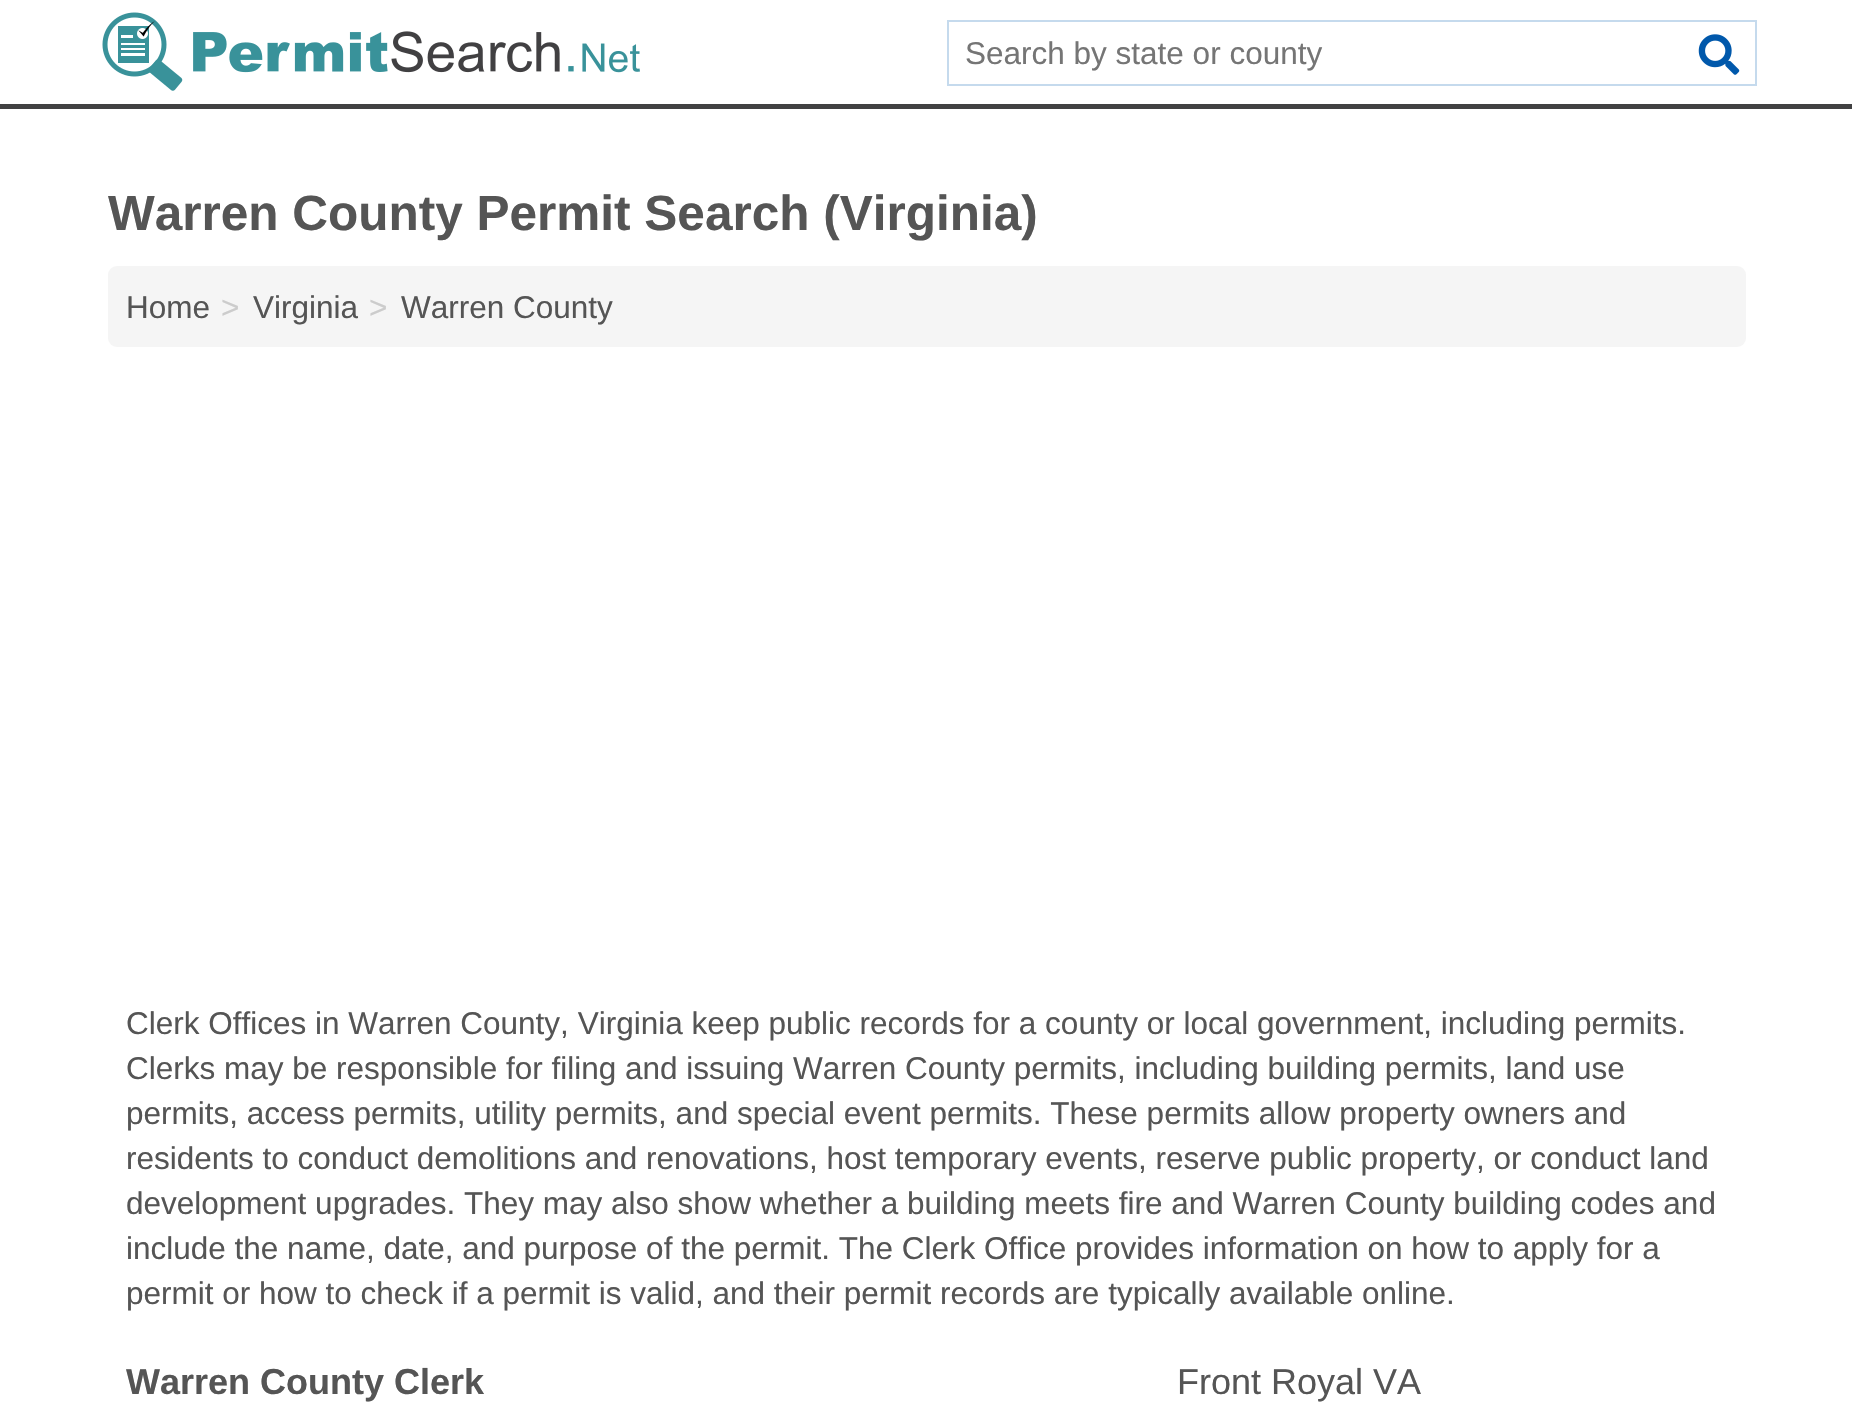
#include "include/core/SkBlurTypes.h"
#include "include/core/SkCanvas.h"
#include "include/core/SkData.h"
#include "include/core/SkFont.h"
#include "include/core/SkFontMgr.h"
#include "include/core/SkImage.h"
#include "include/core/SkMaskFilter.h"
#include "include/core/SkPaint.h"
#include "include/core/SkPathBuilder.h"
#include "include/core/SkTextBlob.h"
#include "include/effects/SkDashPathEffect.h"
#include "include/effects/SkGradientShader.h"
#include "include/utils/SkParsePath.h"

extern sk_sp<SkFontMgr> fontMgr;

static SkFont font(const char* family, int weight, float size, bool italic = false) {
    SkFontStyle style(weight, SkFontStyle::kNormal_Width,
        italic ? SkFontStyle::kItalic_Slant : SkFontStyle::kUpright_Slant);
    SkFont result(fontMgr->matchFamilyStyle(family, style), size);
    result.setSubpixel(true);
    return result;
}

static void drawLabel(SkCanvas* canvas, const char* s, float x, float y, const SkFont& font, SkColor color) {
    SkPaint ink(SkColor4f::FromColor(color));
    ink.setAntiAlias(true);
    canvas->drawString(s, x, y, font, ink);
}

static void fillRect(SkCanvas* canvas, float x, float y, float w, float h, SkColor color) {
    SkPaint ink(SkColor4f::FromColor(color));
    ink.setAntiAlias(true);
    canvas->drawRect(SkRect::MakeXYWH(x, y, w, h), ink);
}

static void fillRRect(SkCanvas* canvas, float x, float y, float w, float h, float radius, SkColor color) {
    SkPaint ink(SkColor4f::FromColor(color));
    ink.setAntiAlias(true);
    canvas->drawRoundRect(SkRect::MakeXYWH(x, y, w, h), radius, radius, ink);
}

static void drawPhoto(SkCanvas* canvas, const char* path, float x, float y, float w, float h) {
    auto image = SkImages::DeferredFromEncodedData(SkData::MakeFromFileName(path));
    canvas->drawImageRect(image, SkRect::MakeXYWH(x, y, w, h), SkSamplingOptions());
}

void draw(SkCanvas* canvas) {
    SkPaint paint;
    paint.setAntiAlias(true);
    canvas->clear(0xFFFFFFFF);
    fillRect(canvas, 0, 104, 1852, 5, 0xFF414142);
    drawPhoto(canvas, "assets/img1.png", 102, 12, 538, 79);
    paint.setStroke(true);
    paint.setStrokeWidth(2);
    paint.setColor(0xFFC5DAED);
    canvas->drawRect(SkRect::MakeXYWH(948, 21, 808, 64), paint);
    SkFont font1 = font("Liberation Sans", 400, 31.5f);
    drawLabel(canvas, "Search by state or county", 965, 64, font1, 0xFF757575);
    drawPhoto(canvas, "assets/img2.png", 1698, 34, 42, 41);
    SkFont font2 = font("Liberation Sans", 700, 49.5f);
    drawLabel(canvas, "Warren County Permit Search (Virginia)", 108, 230, font2, 0xFF555555);
    fillRRect(canvas, 108, 266, 1638, 81, 9, 0xFFF5F5F5);
    drawLabel(canvas, "Home", 126, 318, font1, 0xFF555555);
    drawLabel(canvas, ">", 221, 318, font1, 0xFFCCCCCC);
    drawLabel(canvas, "Virginia", 253, 318, font1, 0xFF555555);
    drawLabel(canvas, ">", 369, 318, font1, 0xFFCCCCCC);
    drawLabel(canvas, "Warren County", 401, 318, font1, 0xFF555555);
    drawLabel(canvas, "Clerk Offices in Warren County, Virginia keep public records for a county or local government, including permits.", 126, 1034, font1, 0xFF555555);
    drawLabel(canvas, "Clerks may be responsible for filing and issuing Warren County permits, including building permits, land use", 126, 1079, font1, 0xFF555555);
    drawLabel(canvas, "permits, access permits, utility permits, and special event permits. These permits allow property owners and", 126, 1124, font1, 0xFF555555);
    drawLabel(canvas, "residents to conduct demolitions and renovations, host temporary events, reserve public property, or conduct land", 126, 1169, font1, 0xFF555555);
    drawLabel(canvas, "development upgrades. They may also show whether a building meets fire and Warren County building codes and", 126, 1214, font1, 0xFF555555);
    drawLabel(canvas, "include the name, date, and purpose of the permit. The Clerk Office provides information on how to apply for a", 126, 1259, font1, 0xFF555555);
    drawLabel(canvas, "permit or how to check if a permit is valid, and their permit records are typically available online.", 126, 1304, font1, 0xFF555555);
    SkFont font3 = font("Liberation Sans", 700, 36);
    drawLabel(canvas, "Warren County Clerk", 126, 1394, font3, 0xFF555555);
    SkFont font4 = font("Liberation Sans", 400, 36);
    drawLabel(canvas, "Front Royal VA", 1177, 1394, font4, 0xFF555555);
}
